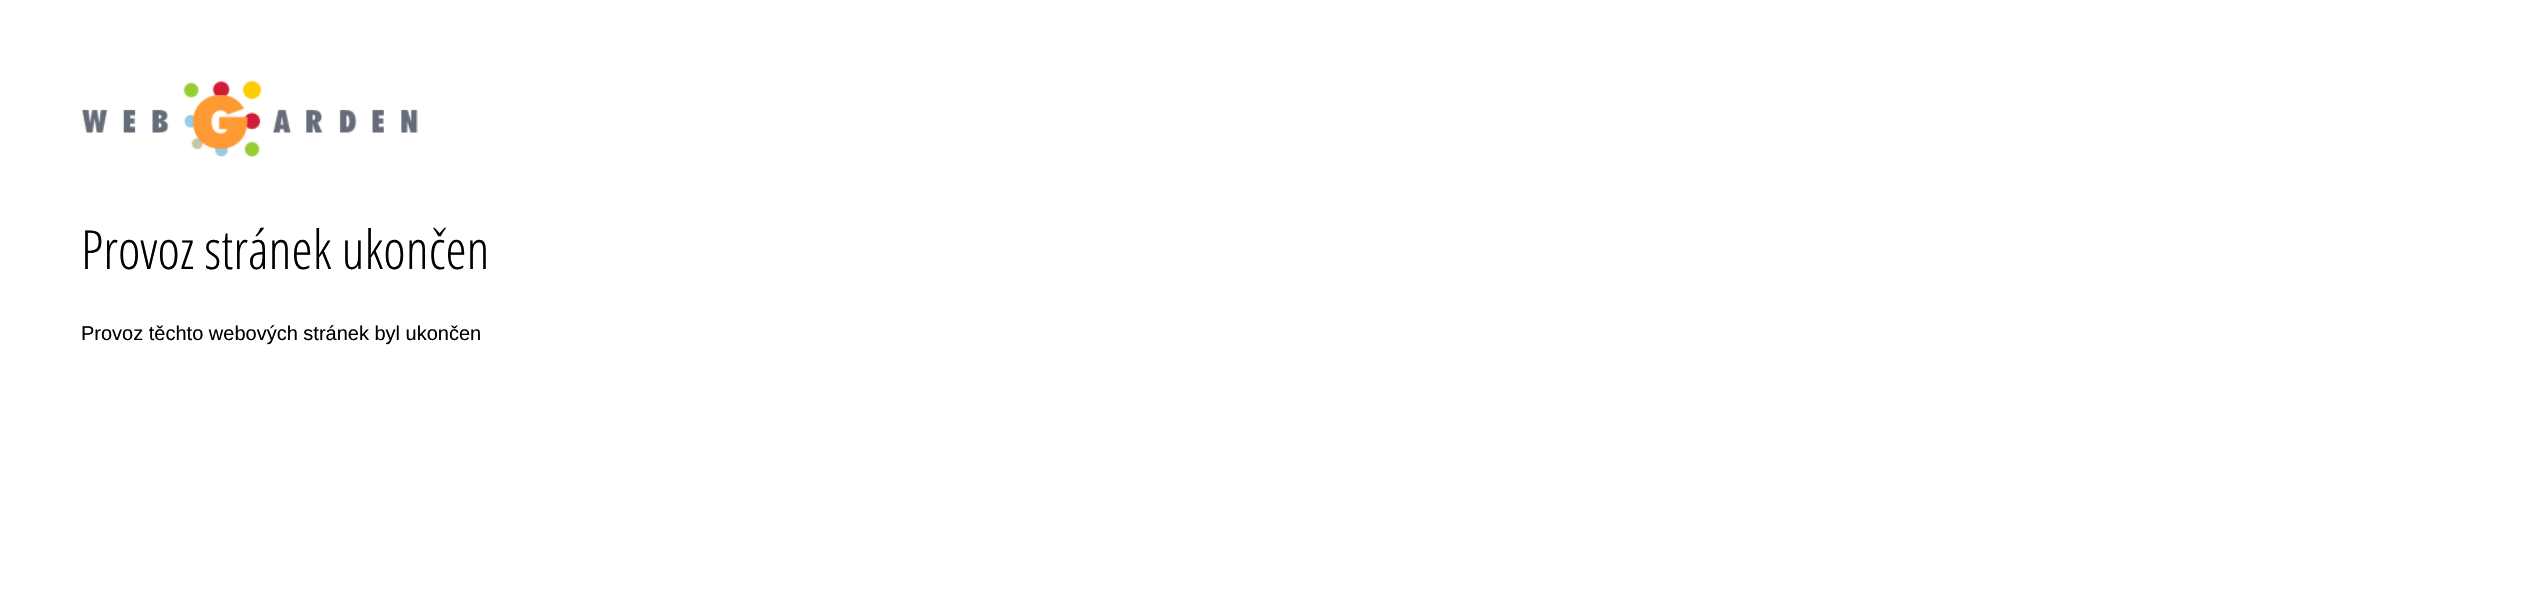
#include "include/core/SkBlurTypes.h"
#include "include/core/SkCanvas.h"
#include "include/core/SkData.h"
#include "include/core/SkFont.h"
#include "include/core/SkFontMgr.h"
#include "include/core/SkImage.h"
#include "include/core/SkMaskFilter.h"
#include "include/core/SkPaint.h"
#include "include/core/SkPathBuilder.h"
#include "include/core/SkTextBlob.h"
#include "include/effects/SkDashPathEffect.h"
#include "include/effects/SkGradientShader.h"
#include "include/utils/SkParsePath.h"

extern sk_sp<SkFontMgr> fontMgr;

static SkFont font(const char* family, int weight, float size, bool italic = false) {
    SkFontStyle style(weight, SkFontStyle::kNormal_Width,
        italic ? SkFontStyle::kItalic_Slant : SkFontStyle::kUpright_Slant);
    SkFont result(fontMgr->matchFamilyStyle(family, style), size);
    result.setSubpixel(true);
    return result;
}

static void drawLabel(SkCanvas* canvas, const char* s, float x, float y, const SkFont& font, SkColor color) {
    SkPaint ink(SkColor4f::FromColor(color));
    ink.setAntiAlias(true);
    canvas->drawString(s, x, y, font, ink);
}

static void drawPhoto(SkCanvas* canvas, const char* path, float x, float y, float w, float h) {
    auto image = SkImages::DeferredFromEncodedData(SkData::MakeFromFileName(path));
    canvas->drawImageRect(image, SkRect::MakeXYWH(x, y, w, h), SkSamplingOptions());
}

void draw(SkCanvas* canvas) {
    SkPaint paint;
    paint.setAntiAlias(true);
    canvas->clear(0xFFFFFFFF);
    drawPhoto(canvas, "assets/img1.png", 81, 80, 337, 78);
    SkFont font1 = font("Open Sans", 300, 54);
    drawLabel(canvas, "Provoz stránek ukončen", 81, 269, font1, 0xFF000000);
    SkFont font2 = font("Liberation Sans", 400, 20);
    drawLabel(canvas, "Provoz těchto webových stránek byl ukončen", 81, 340, font2, 0xFF000000);
}
